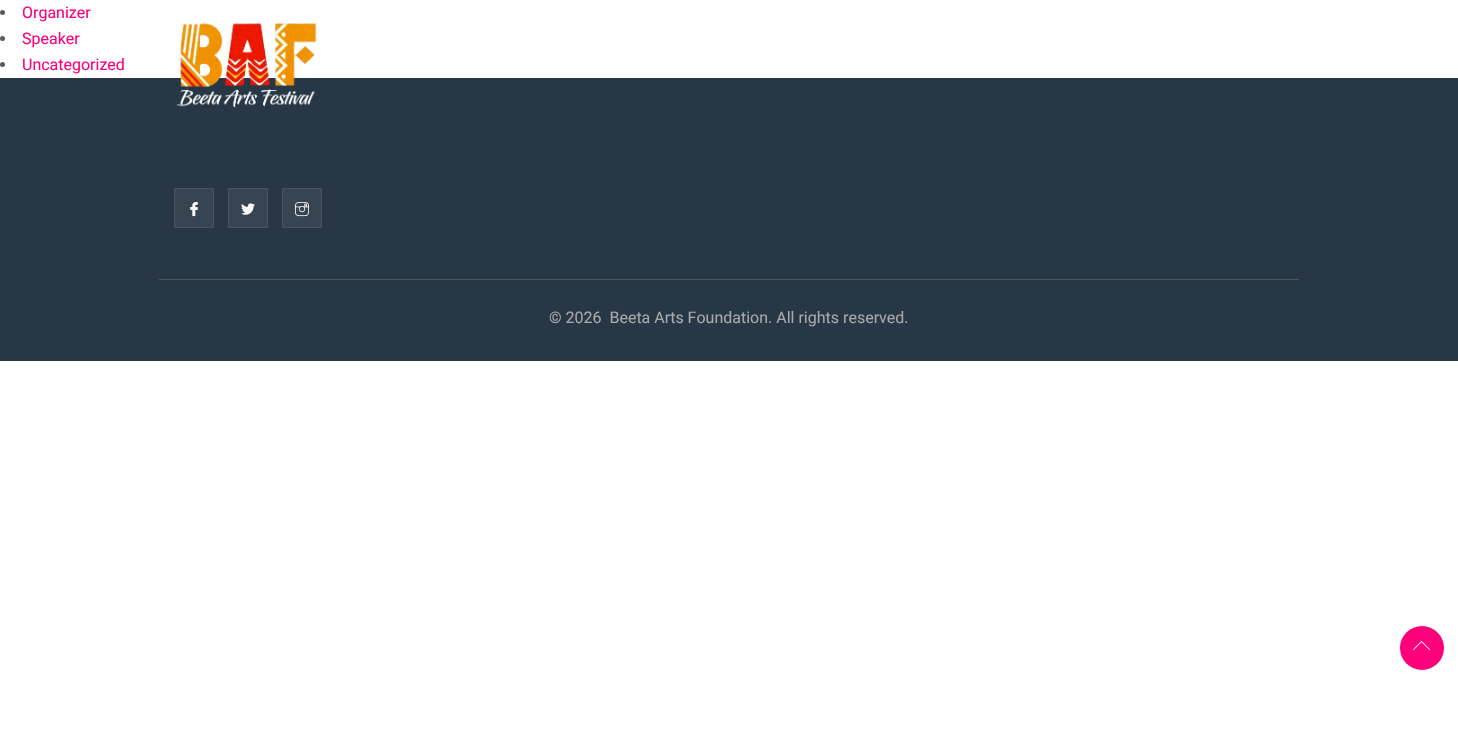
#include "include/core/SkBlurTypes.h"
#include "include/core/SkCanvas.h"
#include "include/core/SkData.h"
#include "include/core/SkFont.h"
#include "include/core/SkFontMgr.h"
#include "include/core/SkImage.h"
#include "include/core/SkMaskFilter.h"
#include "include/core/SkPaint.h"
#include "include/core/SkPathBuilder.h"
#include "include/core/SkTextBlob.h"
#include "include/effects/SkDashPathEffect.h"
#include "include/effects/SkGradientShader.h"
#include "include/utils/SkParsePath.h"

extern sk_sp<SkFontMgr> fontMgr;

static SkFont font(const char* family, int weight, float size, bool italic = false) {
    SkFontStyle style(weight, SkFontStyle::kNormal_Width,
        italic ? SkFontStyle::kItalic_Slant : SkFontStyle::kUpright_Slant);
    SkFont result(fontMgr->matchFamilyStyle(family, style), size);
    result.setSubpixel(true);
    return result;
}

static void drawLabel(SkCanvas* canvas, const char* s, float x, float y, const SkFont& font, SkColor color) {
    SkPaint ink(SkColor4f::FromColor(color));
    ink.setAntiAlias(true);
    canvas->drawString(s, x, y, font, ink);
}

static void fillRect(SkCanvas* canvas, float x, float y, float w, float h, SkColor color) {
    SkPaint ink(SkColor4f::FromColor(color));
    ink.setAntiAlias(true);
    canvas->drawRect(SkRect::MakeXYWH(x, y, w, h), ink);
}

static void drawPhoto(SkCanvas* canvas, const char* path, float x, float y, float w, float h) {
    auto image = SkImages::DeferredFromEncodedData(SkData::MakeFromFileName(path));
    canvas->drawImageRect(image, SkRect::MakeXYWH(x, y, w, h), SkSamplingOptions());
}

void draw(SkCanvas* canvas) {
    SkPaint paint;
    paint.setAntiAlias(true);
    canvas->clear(0xFFFFFFFF);
    paint.setColor(0xFF5A5A5A);
    canvas->drawCircle(2.5f, 12.5f, 2.5f, paint);
    SkFont font1 = font("Roboto", 400, 16);
    drawLabel(canvas, "Organizer", 22, 18, font1, 0xFFFF007A);
    canvas->drawCircle(2.5f, 38.5f, 2.5f, paint);
    drawLabel(canvas, "Speaker", 22, 44, font1, 0xFFFF007A);
    fillRect(canvas, 0, 78, 1458, 283, 0xFF283746);
    drawPhoto(canvas, "assets/img1.png", 176, 23, 141, 85);
    canvas->drawCircle(2.5f, 64.5f, 2.5f, paint);
    drawLabel(canvas, "Uncategorized", 22, 70, font1, 0xFFFF007A);
    paint.setColor(0xFF374553);
    canvas->drawRect(SkRect::MakeXYWH(174.5f, 188.5f, 39, 39), paint);
    paint.setStroke(true);
    paint.setStrokeWidth(1);
    paint.setColor(0xFF525164);
    canvas->drawRect(SkRect::MakeXYWH(174.5f, 188.5f, 39, 39), paint);
    drawPhoto(canvas, "assets/img2.png", 190, 202, 8, 15);
    paint.setStroke(false);
    paint.setColor(0xFF374553);
    canvas->drawRect(SkRect::MakeXYWH(228.5f, 188.5f, 39, 39), paint);
    paint.setStroke(true);
    paint.setColor(0xFF525164);
    canvas->drawRect(SkRect::MakeXYWH(228.5f, 188.5f, 39, 39), paint);
    drawPhoto(canvas, "assets/img3.png", 241, 203, 14, 12);
    paint.setStroke(false);
    paint.setColor(0xFF374553);
    canvas->drawRect(SkRect::MakeXYWH(282.5f, 188.5f, 39, 39), paint);
    paint.setStroke(true);
    paint.setColor(0xFF525164);
    canvas->drawRect(SkRect::MakeXYWH(282.5f, 188.5f, 39, 39), paint);
    drawPhoto(canvas, "assets/img4.png", 295, 202, 14, 15);
    fillRect(canvas, 159, 279, 1140, 1, 0xFF555555);
    drawLabel(canvas, "© 2026  Beeta Arts Foundation. All rights reserved.", 549, 323, font1, 0xFFA8A8AD);
    paint.setStroke(false);
    paint.setColor(0xFFFF007A);
    canvas->drawCircle(1422, 648, 22, paint);
    drawPhoto(canvas, "assets/img5.png", 1413, 641, 18, 9);
}
